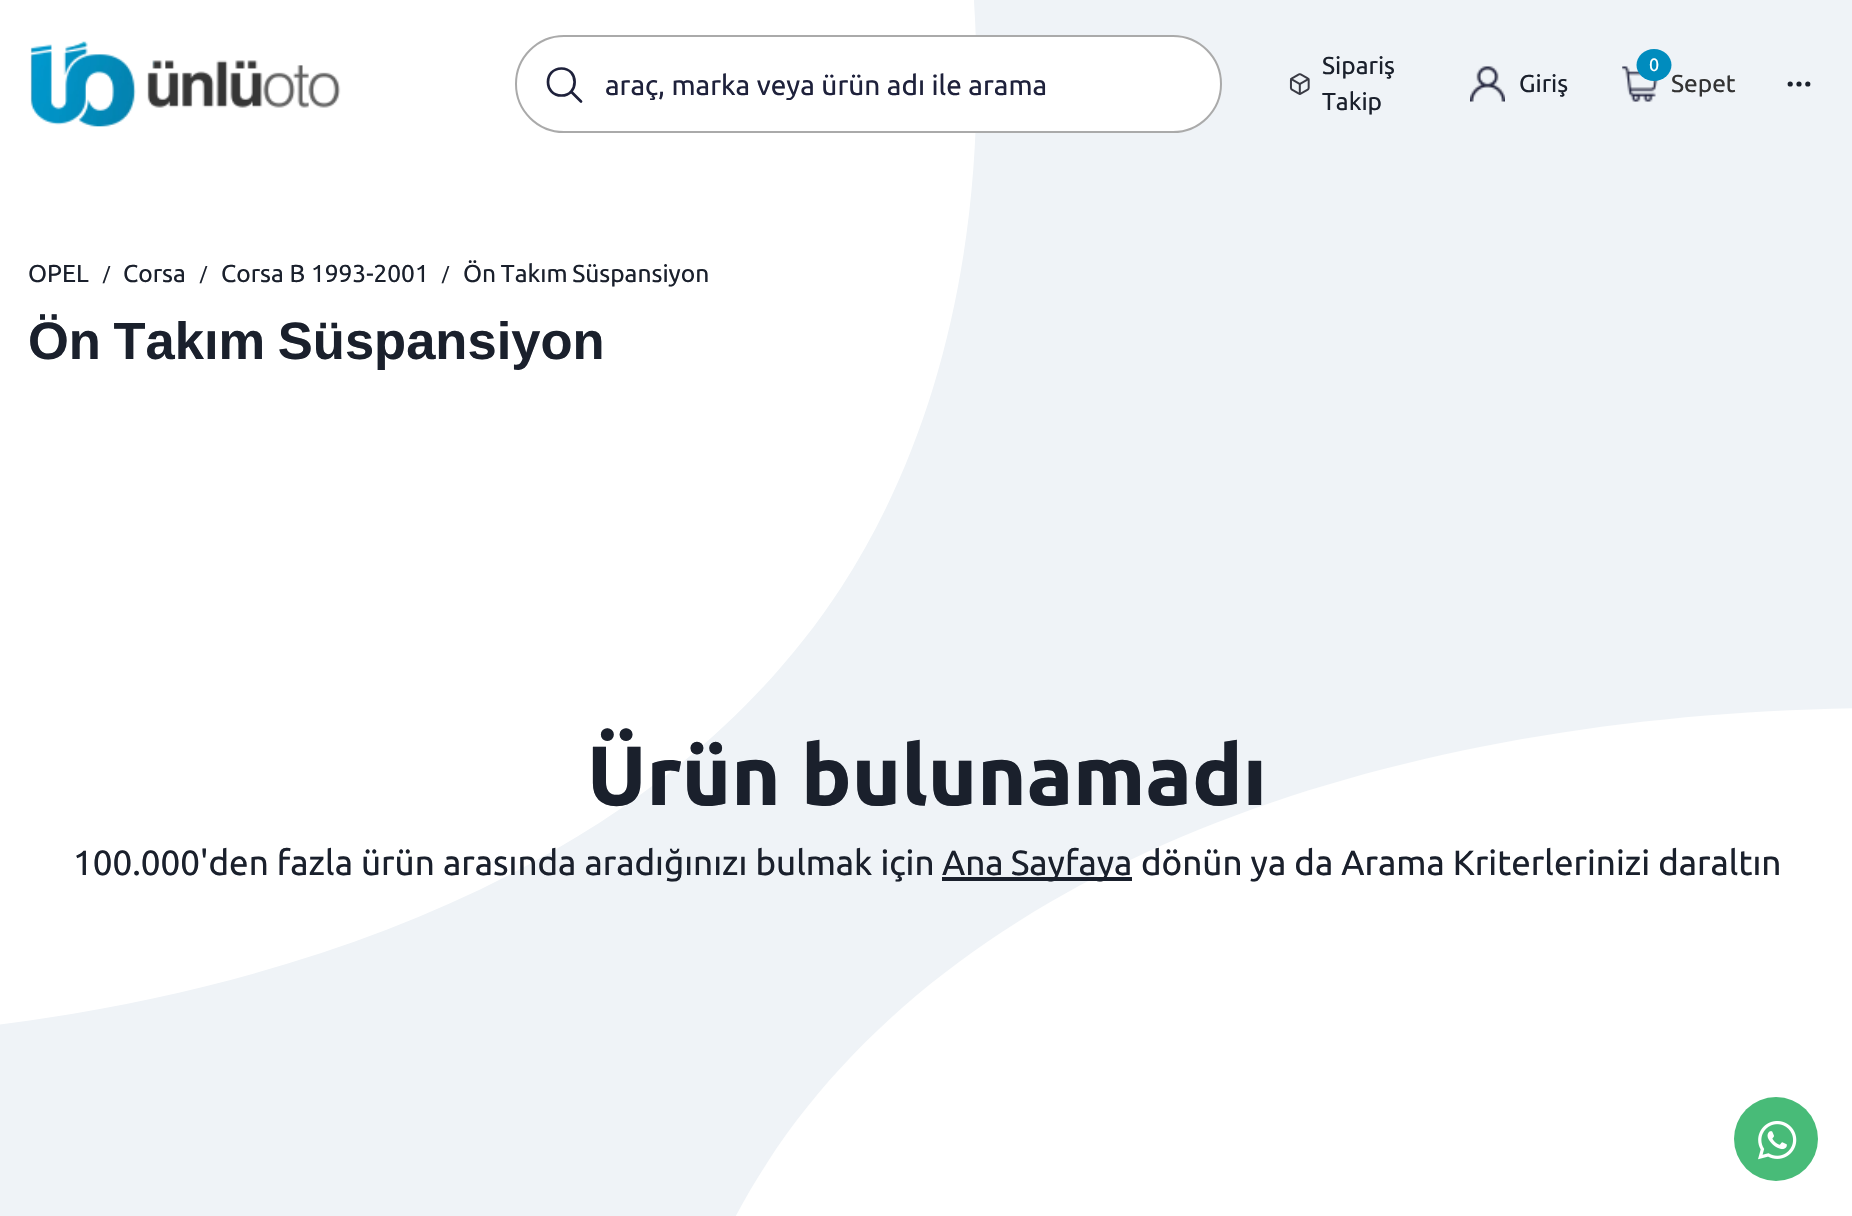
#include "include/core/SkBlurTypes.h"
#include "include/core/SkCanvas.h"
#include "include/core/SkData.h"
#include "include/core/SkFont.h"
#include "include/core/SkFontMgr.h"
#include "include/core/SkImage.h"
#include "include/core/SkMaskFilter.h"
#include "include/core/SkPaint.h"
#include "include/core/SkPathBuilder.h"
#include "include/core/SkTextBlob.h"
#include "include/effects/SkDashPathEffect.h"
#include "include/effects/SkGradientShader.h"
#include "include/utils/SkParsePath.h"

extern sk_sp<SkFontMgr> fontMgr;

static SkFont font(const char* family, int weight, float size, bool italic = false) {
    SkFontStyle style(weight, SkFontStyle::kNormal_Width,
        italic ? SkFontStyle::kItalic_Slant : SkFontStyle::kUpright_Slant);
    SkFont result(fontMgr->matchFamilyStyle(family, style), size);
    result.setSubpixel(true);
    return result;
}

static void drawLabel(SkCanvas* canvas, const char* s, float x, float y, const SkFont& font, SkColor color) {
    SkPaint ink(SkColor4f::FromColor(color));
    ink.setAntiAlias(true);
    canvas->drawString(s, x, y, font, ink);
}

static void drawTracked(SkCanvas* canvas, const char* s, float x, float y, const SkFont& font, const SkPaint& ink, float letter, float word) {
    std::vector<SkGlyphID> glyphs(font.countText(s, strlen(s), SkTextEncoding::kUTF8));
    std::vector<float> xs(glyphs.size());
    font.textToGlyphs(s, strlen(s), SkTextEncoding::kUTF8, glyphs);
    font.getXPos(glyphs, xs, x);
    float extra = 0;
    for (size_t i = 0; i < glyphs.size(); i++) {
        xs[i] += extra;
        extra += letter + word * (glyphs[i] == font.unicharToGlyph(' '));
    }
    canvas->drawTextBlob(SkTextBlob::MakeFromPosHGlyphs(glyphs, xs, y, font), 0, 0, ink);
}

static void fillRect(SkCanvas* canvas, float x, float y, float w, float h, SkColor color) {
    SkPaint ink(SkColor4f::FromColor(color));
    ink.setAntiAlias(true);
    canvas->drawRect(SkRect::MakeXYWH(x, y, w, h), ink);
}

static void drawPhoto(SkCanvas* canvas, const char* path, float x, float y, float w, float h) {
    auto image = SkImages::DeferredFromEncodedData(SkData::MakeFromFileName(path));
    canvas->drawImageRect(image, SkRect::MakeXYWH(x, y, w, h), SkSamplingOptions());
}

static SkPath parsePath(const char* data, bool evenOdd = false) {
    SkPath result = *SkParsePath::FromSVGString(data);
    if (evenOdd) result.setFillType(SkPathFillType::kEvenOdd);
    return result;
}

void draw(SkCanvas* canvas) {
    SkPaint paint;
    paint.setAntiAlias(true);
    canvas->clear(0xFFEFF3F7);
    drawPhoto(canvas, "assets/img1.png", 0, 0, 976, 1025);
    drawPhoto(canvas, "assets/img2.png", 30, 41, 311, 86);
    paint.setColor(0xFFFFFFFF);
    canvas->drawRoundRect(SkRect::MakeXYWH(516, 36, 705, 96), 48, 48, paint);
    paint.setStroke(true);
    paint.setStrokeWidth(2);
    paint.setColor(0xFFAAAAAA);
    canvas->drawRoundRect(SkRect::MakeXYWH(516, 36, 705, 96), 48, 48, paint);
    paint.setStrokeWidth(2.7f);
    paint.setColor(0xFF1E213B);
    canvas->drawPath(parsePath("M561.5 68.5C543.5 68.5 543.5 95.5 561.5 95.5C579 95.5 579 68.5 561.5 68.5Z"), paint);
    paint.setStrokeCap(SkPaint::kRound_Cap);
    canvas->drawPath(parsePath("M571.5 92L581 101.5"), paint);
    canvas->save();
    canvas->clipRect(SkRect::MakeXYWH(604, 68, 598, 32));
    SkFont font1 = font("Ubuntu", 400, 28);
    drawLabel(canvas, "araç, marka veya ürün adı ile arama", 605, 95, font1, 0xFF1E213B);
    canvas->restore();
    drawPhoto(canvas, "assets/img3.png", 1289, 73, 21, 22);
    SkFont font2 = font("Ubuntu", 400, 24.5f);
    drawLabel(canvas, "Sipariş", 1322, 74, font2, 0xFF1A202C);
    drawLabel(canvas, "Takip", 1322, 110, font2, 0xFF1A202C);
    drawPhoto(canvas, "assets/img4.png", 1470, 66, 35, 36);
    drawLabel(canvas, "Giriş", 1519, 92, font2, 0xFF1A202C);
    drawPhoto(canvas, "assets/img5.png", 1622, 66, 36, 36);
    drawLabel(canvas, "Sepet", 1671, 92, font2, 0xFF333333);
    paint.setStroke(false);
    paint.setColor(0xFF008CBE);
    canvas->drawOval(SkRect::MakeXYWH(1636.5f, 49, 35, 32), paint);
    SkFont font3 = font("Ubuntu", 400, 18);
    drawLabel(canvas, "0", 1649, 71, font3, 0xFFFFFFFF);
    paint.setColor(0xFF1A202C);
    canvas->drawCircle(1799, 84, 2.6f, paint);
    canvas->drawCircle(1807.8f, 84, 2.6f, paint);
    canvas->drawCircle(1790.2f, 84, 2.6f, paint);
    drawLabel(canvas, "OPEL", 28, 282, font2, 0xFF1A202C);
    drawLabel(canvas, "/", 103, 280, font3, 0xFF1A202C);
    drawLabel(canvas, "Corsa", 123, 282, font2, 0xFF1A202C);
    drawLabel(canvas, "/", 200, 280, font3, 0xFF1A202C);
    drawLabel(canvas, "Corsa B 1993-2001", 221, 282, font2, 0xFF1A202C);
    drawLabel(canvas, "/", 442, 280, font3, 0xFF1A202C);
    drawTracked(canvas, "Ön Takım Süspansiyon", 463, 282, font2, paint, 0, -1);
    SkFont font4 = font("Liberation Sans", 700, 52.5f);
    drawTracked(canvas, "Ön Takım Süspansiyon", 28, 359, font4, paint, 0, -2);
    paint.setColor(0xFFFFFFFF);
    canvas->drawPath(parsePath("M818 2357C597 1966 564 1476 767 1163C971 850 1412 714 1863 708C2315 702 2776 827 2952 1124C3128 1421 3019 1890 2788 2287C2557 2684 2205 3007 1825 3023C1446 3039 1038 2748 818 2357Z"), paint);
    SkFont font5 = font("Ubuntu", 700, 84);
    drawLabel(canvas, "Ürün bulunamadı", 587, 805, font5, 0xFF1A202C);
    SkFont font6 = font("Ubuntu", 400, 35);
    drawLabel(canvas, "100.000'den fazla ürün arasında aradığınızı bulmak için", 73, 875, font6, 0xFF1A202C);
    fillRect(canvas, 942, 877, 190, 4, 0xFF1A202C);
    paint.setColor(0xFF1A202C);
    drawTracked(canvas, "Ana Sayfaya", 942, 875, font6, paint, 0, -1);
    drawLabel(canvas, "dönün ya da Arama Kriterlerinizi daraltın", 1141, 875, font6, 0xFF1A202C);
    paint.setColor(0xFF48BB78);
    canvas->drawCircle(1776, 1139, 42, paint);
    drawPhoto(canvas, "assets/img6.png", 1758, 1121, 39, 39);
}
